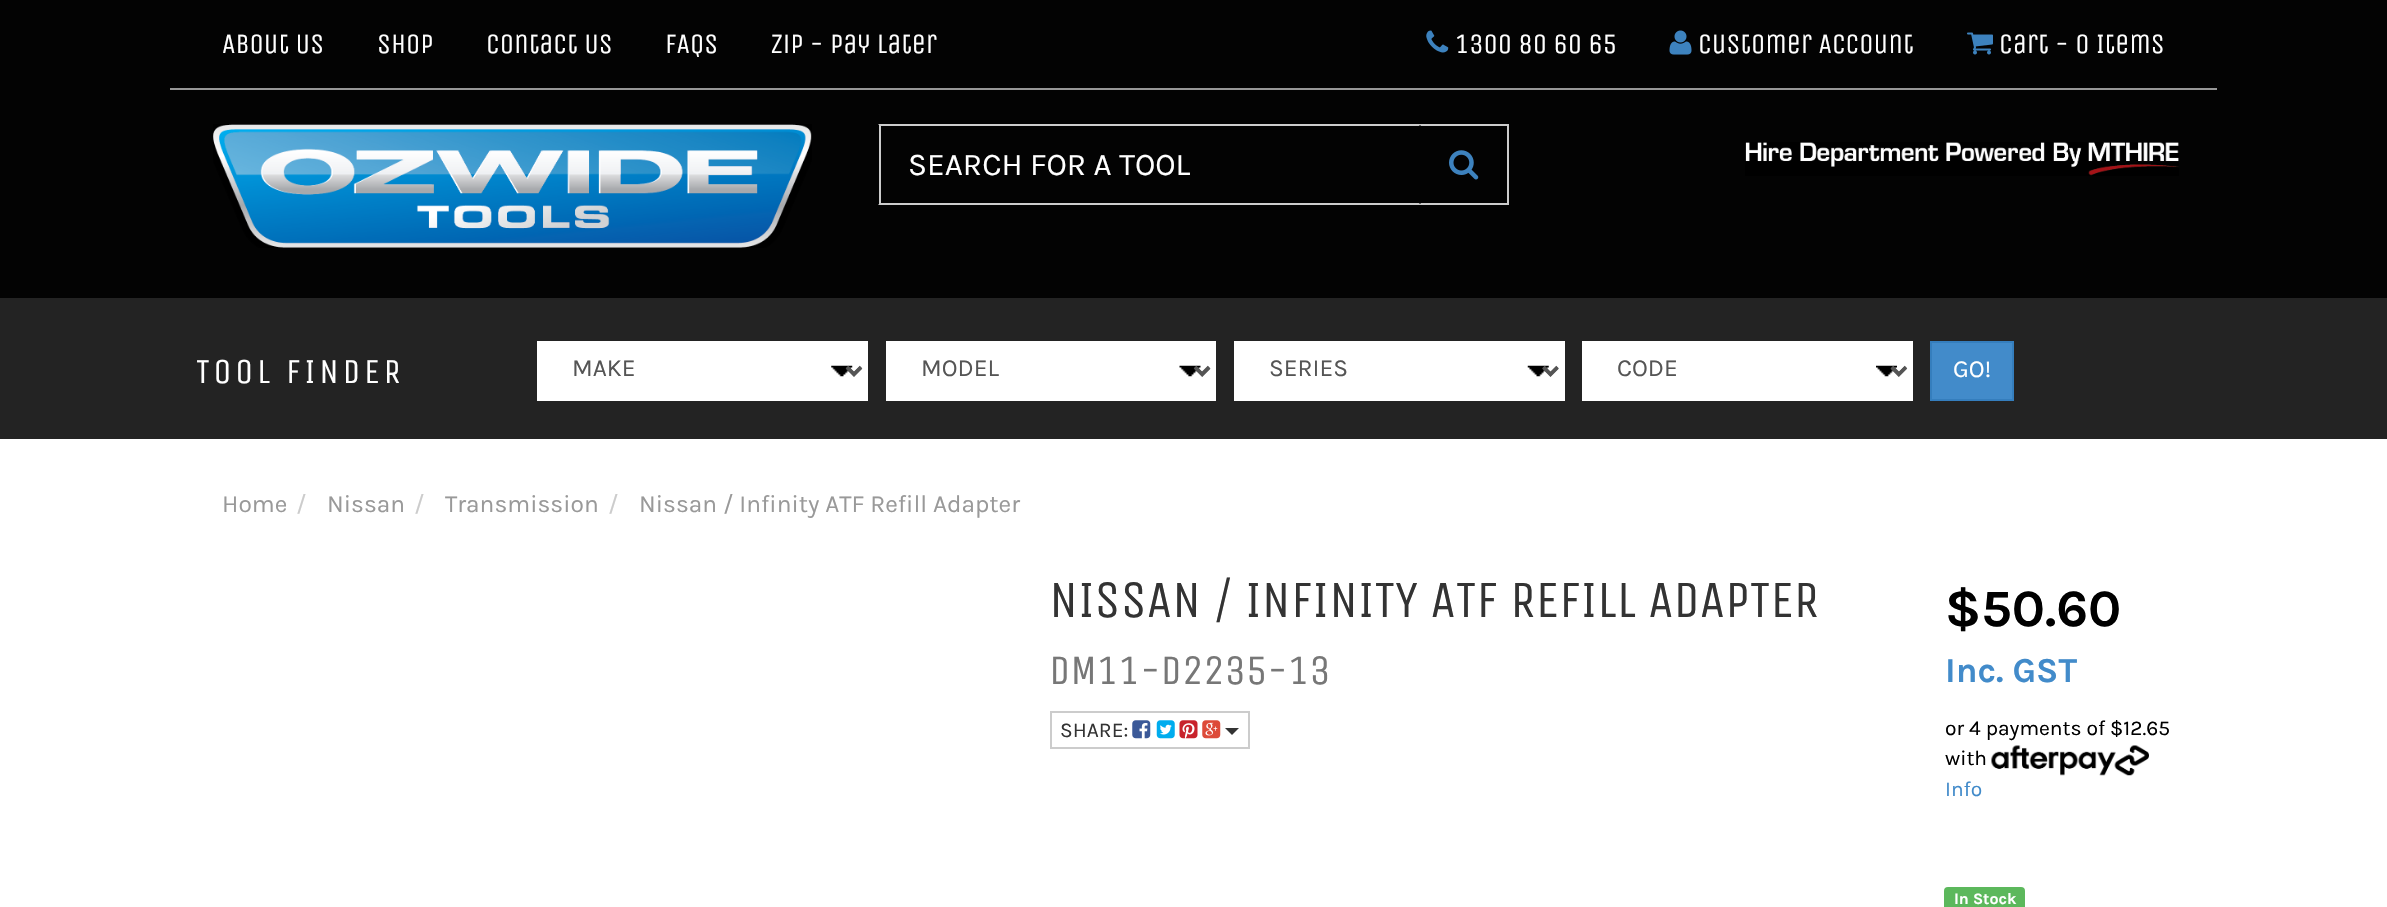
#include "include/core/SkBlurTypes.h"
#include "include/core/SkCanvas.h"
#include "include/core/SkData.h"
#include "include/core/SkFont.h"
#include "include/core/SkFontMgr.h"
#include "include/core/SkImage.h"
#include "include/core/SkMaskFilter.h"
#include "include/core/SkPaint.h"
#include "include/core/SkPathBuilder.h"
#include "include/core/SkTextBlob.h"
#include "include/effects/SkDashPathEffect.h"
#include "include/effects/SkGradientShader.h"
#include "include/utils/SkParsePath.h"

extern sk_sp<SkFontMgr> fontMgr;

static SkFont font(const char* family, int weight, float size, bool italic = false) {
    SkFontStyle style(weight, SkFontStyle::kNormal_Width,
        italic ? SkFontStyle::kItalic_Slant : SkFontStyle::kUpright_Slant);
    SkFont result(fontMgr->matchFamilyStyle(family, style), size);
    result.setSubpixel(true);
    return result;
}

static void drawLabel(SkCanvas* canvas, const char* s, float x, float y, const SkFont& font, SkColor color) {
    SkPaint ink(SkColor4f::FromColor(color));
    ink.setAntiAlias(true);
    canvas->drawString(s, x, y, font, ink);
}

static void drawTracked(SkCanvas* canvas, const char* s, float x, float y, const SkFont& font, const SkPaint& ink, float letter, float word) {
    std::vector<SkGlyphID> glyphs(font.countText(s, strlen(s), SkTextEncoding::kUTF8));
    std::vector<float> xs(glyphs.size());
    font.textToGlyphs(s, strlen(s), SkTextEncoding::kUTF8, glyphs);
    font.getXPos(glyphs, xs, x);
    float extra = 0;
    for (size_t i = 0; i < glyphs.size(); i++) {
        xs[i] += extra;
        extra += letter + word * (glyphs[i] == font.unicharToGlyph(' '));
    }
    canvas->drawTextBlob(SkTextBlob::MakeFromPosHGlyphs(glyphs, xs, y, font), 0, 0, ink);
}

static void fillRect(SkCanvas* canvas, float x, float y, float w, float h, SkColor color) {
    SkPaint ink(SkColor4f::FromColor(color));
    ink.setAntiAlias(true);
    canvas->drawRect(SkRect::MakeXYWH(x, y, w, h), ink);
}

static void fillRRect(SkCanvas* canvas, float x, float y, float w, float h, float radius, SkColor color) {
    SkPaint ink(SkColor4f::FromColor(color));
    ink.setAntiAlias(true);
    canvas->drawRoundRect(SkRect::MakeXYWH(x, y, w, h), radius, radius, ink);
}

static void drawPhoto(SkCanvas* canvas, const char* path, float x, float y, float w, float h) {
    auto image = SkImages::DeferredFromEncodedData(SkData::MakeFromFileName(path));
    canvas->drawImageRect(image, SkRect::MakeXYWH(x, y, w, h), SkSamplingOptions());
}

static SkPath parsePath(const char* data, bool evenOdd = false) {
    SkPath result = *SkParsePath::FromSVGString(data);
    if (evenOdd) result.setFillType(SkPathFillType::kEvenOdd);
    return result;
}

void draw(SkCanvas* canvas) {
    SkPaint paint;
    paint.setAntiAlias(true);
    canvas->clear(0xFFFFFFFF);
    fillRect(canvas, 0, 0, 2387, 298, 0xFF030303);
    fillRect(canvas, 170, 88, 2047, 2, 0xFF979797);
    SkFont font1 = font("Unica One", 400, 28);
    drawLabel(canvas, "About Us", 222, 53, font1, 0xFFFFFFFF);
    drawLabel(canvas, "Shop", 377, 53, font1, 0xFFFFFFFF);
    drawLabel(canvas, "Contact Us", 486, 53, font1, 0xFFFFFFFF);
    drawLabel(canvas, "FAQs", 665, 53, font1, 0xFFFFFFFF);
    drawLabel(canvas, "Zip - Pay Later", 771, 53, font1, 0xFFFFFFFF);
    drawPhoto(canvas, "assets/img1.png", 1426, 30, 23, 23);
    drawLabel(canvas, "1300 80 60 65", 1455, 53, font1, 0xFFFFFFFF);
    drawPhoto(canvas, "assets/img2.png", 1669, 30, 23, 25);
    drawLabel(canvas, "Customer Account", 1698, 53, font1, 0xFFFFFFFF);
    drawPhoto(canvas, "assets/img3.png", 1967, 32, 26, 23);
    drawLabel(canvas, "Cart - 0 Items", 1999, 53, font1, 0xFFFFFFFF);
    drawPhoto(canvas, "assets/img4.png", 213, 124, 599, 124);
    paint.setColor(0xFFCCCCCC);
    canvas->drawPath(parsePath("M878 124H1421L1419 126H880Z"), paint);
    canvas->drawPath(parsePath("M1421 205H878L880 203H1419Z"), paint);
    fillRect(canvas, 879, 124, 2, 81, 0xFFCCCCCC);
    SkFont font2 = font("Karla", 400, 31.5f);
    drawLabel(canvas, "SEARCH FOR A TOOL", 908, 175, font2, 0xFFFFFFFF);
    canvas->drawPath(parsePath("M1419 124H1508L1507 126H1421Z"), paint);
    fillRect(canvas, 1507, 124, 2, 81, 0xFFCCCCCC);
    canvas->drawPath(parsePath("M1508 205H1419L1421 203H1507Z"), paint);
    drawPhoto(canvas, "assets/img5.png", 1449, 150, 30, 30);
    drawPhoto(canvas, "assets/img6.png", 1745, 142, 434, 34);
    fillRect(canvas, 0, 298, 2387, 141, 0xFF232323);
    SkFont font3 = font("Unica One", 400, 35);
    paint.setColor(0xFFFFFFFF);
    drawTracked(canvas, "TOOL FINDER", 196, 383, font3, paint, 3.9f, 0);
    fillRect(canvas, 537, 341, 331, 60, 0xFFFFFFFF);
    drawPhoto(canvas, "assets/img7.png", 831, 365, 32, 12);
    paint.setStroke(true);
    paint.setStrokeWidth(3.5f);
    paint.setColor(0xFF555555);
    canvas->drawPath(parsePath("M847 367L854 374L861 367"), paint);
    SkFont font4 = font("Karla", 400, 24.5f);
    drawLabel(canvas, "MAKE", 572, 376, font4, 0xFF555555);
    fillRect(canvas, 886, 341, 330, 60, 0xFFFFFFFF);
    drawPhoto(canvas, "assets/img8.png", 1179, 365, 32, 12);
    canvas->drawPath(parsePath("M1195 367L1202 374L1209 367"), paint);
    drawLabel(canvas, "MODEL", 921, 376, font4, 0xFF555555);
    fillRect(canvas, 1234, 341, 331, 60, 0xFFFFFFFF);
    drawPhoto(canvas, "assets/img9.png", 1527, 365, 32, 12);
    canvas->drawPath(parsePath("M1543.5 367L1550.5 374L1557.5 367"), paint);
    drawLabel(canvas, "SERIES", 1269, 376, font4, 0xFF555555);
    fillRect(canvas, 1582, 341, 331, 60, 0xFFFFFFFF);
    drawPhoto(canvas, "assets/img10.png", 1876, 365, 31, 12);
    canvas->drawPath(parsePath("M1892 367L1899 374L1906 367"), paint);
    drawLabel(canvas, "CODE", 1617, 376, font4, 0xFF555555);
    paint.setStroke(false);
    paint.setColor(0xFF428BCA);
    canvas->drawRect(SkRect::MakeXYWH(1931, 342, 82, 58), paint);
    paint.setStroke(true);
    paint.setStrokeWidth(2);
    paint.setColor(0xFF357EBD);
    canvas->drawRect(SkRect::MakeXYWH(1931, 342, 82, 58), paint);
    drawLabel(canvas, "GO!", 1953, 377, font4, 0xFFFFFFFF);
    drawLabel(canvas, "Home", 222, 512, font4, 0xFF999999);
    drawLabel(canvas, "/", 296, 512, font4, 0xFFCCCCCC);
    drawLabel(canvas, "Nissan", 327, 512, font4, 0xFF999999);
    drawLabel(canvas, "/", 414, 512, font4, 0xFFCCCCCC);
    drawLabel(canvas, "Transmission", 445, 512, font4, 0xFF999999);
    drawLabel(canvas, "/", 608, 512, font4, 0xFFCCCCCC);
    drawLabel(canvas, "Nissan / Infinity ATF Refill Adapter", 639, 512, font4, 0xFF999999);
    SkFont font5 = font("Unica One", 400, 52.5f);
    drawLabel(canvas, "NISSAN / INFINITY ATF REFILL ADAPTER", 1049, 617, font5, 0xFF333333);
    SkFont font6 = font("Unica One", 400, 42);
    drawLabel(canvas, "DM11-D2235-13", 1049, 684, font6, 0xFF777777);
    paint.setColor(0xFFCCCCCC);
    canvas->drawRect(SkRect::MakeXYWH(1051, 712, 198, 36), paint);
    SkFont font7 = font("Karla", 400, 21);
    drawLabel(canvas, "SHARE:", 1060, 737, font7, 0xFF333333);
    drawPhoto(canvas, "assets/img11.png", 1132, 720, 19, 19);
    drawPhoto(canvas, "assets/img12.png", 1156, 720, 19, 19);
    drawPhoto(canvas, "assets/img13.png", 1179, 720, 19, 19);
    drawPhoto(canvas, "assets/img14.png", 1202, 720, 19, 19);
    paint.setStroke(false);
    paint.setColor(0xFF333333);
    canvas->drawPath(parsePath("M1225 728H1239L1232 735Z"), paint);
    SkFont font8 = font("Karla", 700, 52.5f);
    drawLabel(canvas, "$50.60", 1945, 626, font8, 0xFF000000);
    SkFont font9 = font("Karla", 700, 35);
    drawLabel(canvas, "Inc. GST", 1945, 682, font9, 0xFF428BCA);
    drawLabel(canvas, "or 4 payments of $12.65", 1945, 735, font7, 0xFF000000);
    drawLabel(canvas, "with", 1945, 765, font7, 0xFF000000);
    drawPhoto(canvas, "assets/img15.png", 1991, 745, 158, 31);
    drawLabel(canvas, "Info", 1945, 796, font7, 0xFF428BCA);
    fillRRect(canvas, 1944, 887, 81, 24, 4, 0xFF5CB85C);
    SkFont font10 = font("Karla", 700, 16);
    drawLabel(canvas, "In Stock", 1954, 904, font10, 0xFFFFFFFF);
}
